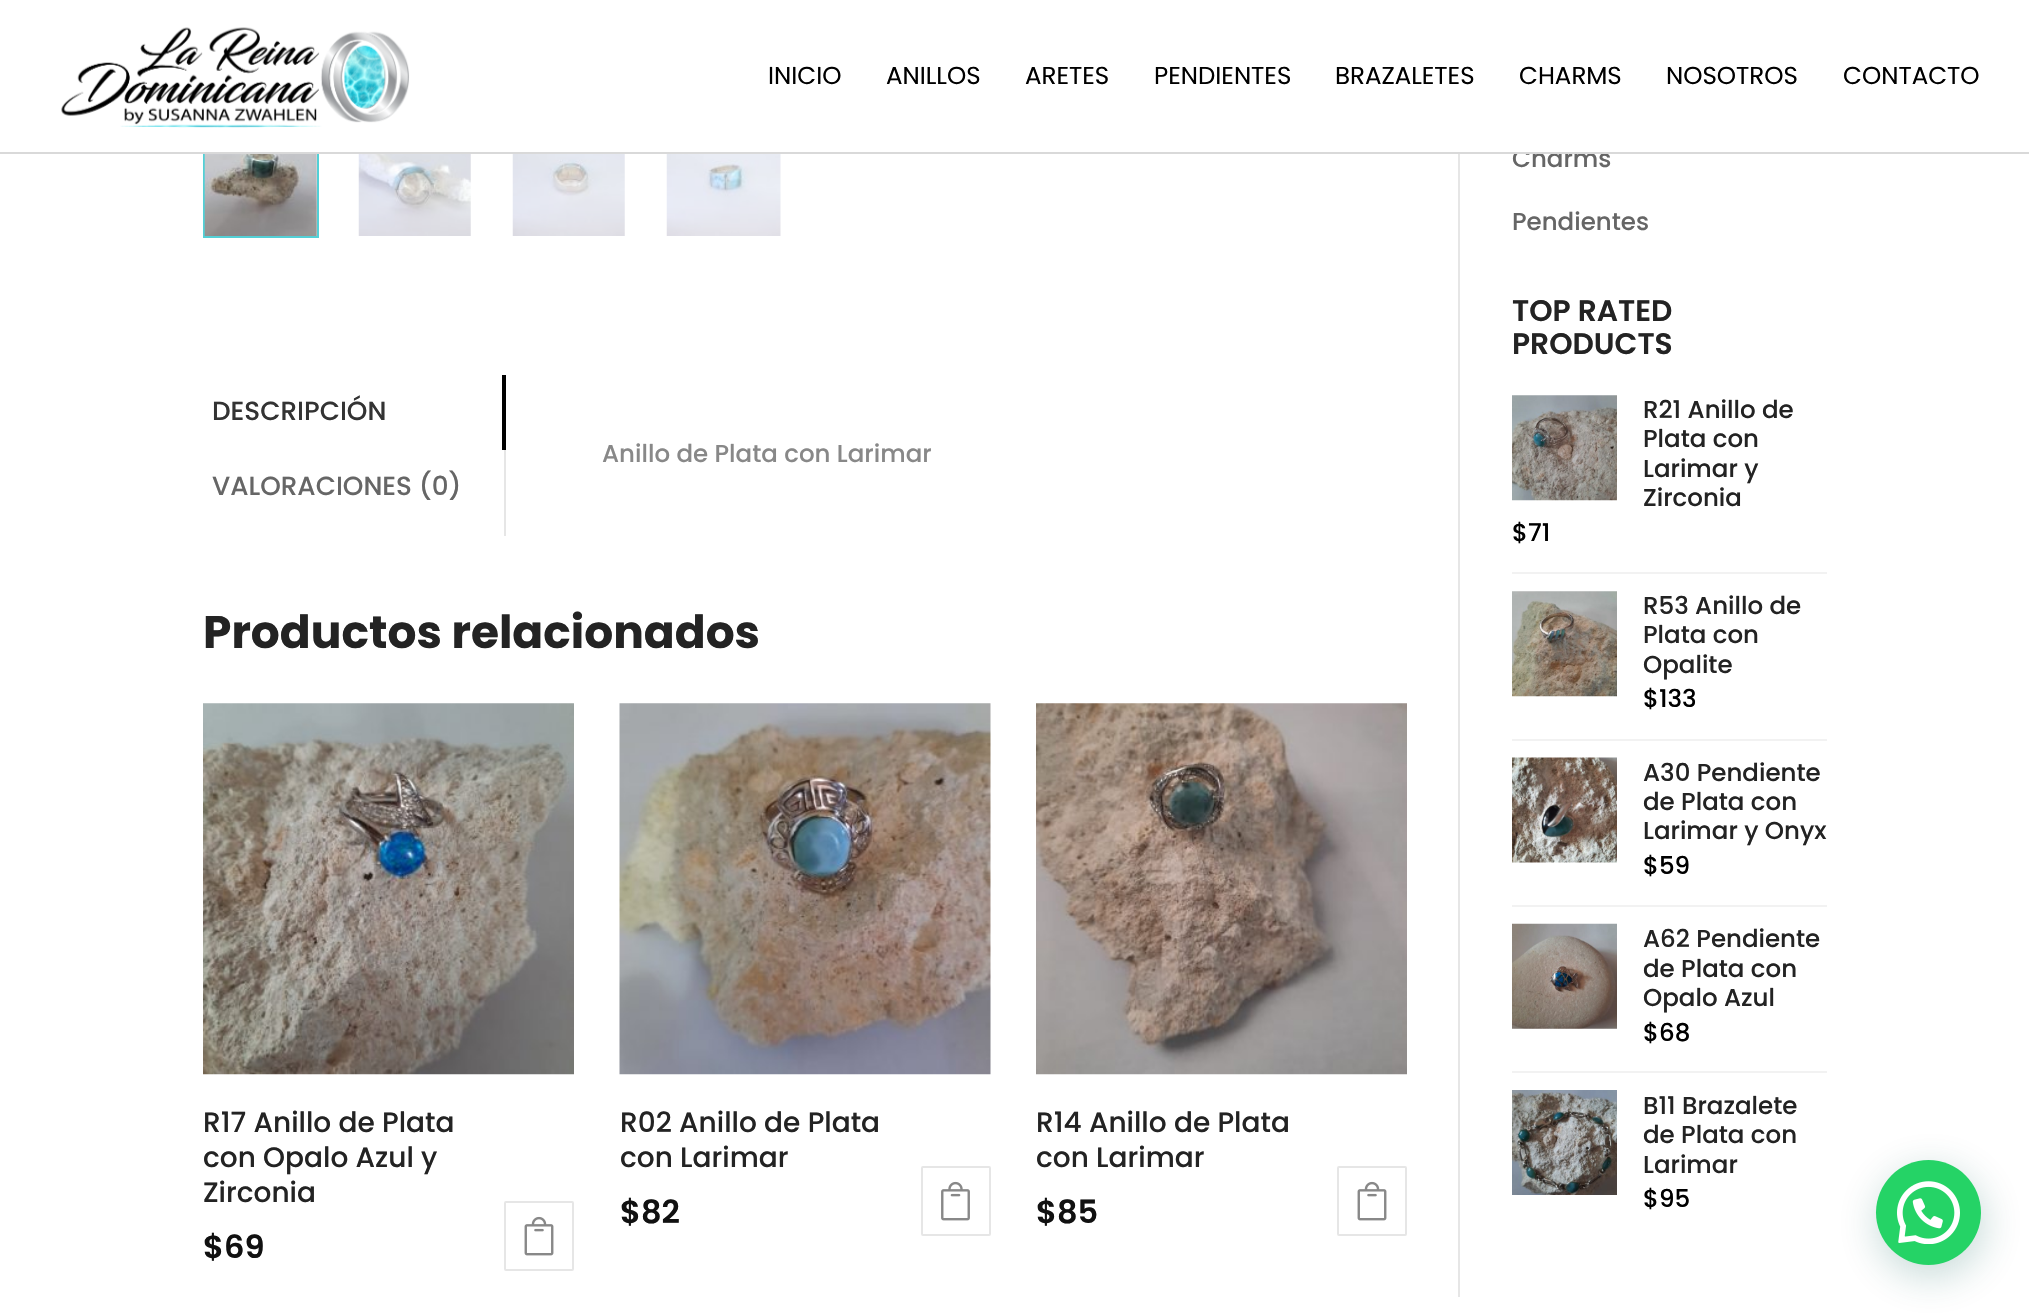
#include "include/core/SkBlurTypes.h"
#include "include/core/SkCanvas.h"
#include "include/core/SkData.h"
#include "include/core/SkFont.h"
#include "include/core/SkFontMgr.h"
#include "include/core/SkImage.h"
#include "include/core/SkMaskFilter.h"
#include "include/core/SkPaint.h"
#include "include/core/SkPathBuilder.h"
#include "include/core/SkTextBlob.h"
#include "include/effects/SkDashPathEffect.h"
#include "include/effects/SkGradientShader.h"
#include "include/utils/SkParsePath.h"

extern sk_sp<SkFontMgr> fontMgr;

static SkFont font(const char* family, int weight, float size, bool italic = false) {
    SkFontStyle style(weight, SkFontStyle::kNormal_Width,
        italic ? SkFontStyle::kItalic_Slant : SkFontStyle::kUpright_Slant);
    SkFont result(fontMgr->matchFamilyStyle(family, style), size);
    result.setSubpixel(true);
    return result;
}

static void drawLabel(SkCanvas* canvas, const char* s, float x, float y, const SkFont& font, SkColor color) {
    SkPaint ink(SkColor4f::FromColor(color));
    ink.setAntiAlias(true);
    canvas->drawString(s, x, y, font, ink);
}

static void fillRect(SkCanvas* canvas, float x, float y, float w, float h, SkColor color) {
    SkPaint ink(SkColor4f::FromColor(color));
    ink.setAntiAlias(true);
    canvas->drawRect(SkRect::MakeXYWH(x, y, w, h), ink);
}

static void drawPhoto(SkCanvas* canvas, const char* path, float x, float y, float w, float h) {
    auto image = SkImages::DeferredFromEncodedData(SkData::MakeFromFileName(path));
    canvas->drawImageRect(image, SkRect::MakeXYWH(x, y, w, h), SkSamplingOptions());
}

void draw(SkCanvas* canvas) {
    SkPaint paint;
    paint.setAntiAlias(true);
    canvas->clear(0xFFFFFFFF);
    paint.setStroke(true);
    paint.setStrokeWidth(2);
    paint.setColor(0xFF53D0D6);
    canvas->drawRect(SkRect::MakeXYWH(204, 124, 114, 113), paint);
    SkFont font1 = font("Poppins", 500, 24.5f);
    drawLabel(canvas, "Charms", 1512, 167, font1, 0xFF666666);
    fillRect(canvas, 203, 123, 1333, 29, 0xFFFFFFFF);
    fillRect(canvas, 0, 152, 2029, 2, 0xFFD9D9D9);
    drawPhoto(canvas, "assets/img1.png", 61, 27, 349, 101);
    SkFont font2 = font("Poppins", 400, 24.5f);
    drawLabel(canvas, "INICIO", 768, 84, font2, 0xFF000000);
    drawLabel(canvas, "ANILLOS", 886, 84, font2, 0xFF000000);
    drawLabel(canvas, "ARETES", 1025, 84, font2, 0xFF000000);
    drawLabel(canvas, "PENDIENTES", 1154, 84, font2, 0xFF000000);
    drawLabel(canvas, "BRAZALETES", 1335, 84, font2, 0xFF000000);
    drawLabel(canvas, "CHARMS", 1519, 84, font2, 0xFF000000);
    drawLabel(canvas, "NOSOTROS", 1666, 84, font2, 0xFF000000);
    drawLabel(canvas, "CONTACTO", 1843, 84, font2, 0xFF000000);
    drawPhoto(canvas, "assets/img2.png", 204, 154, 113, 82);
    drawPhoto(canvas, "assets/img3.png", 358, 154, 113, 82);
    drawPhoto(canvas, "assets/img4.png", 512, 154, 113, 82);
    drawPhoto(canvas, "assets/img5.png", 666, 154, 115, 82);
    SkFont font3 = font("Poppins", 500, 26.25f);
    drawLabel(canvas, "DESCRIPCIÓN", 212, 420, font3, 0xFF333333);
    fillRect(canvas, 502, 375, 4, 75, 0xFF000000);
    drawLabel(canvas, "VALORACIONES (0)", 212, 495, font3, 0xFF666666);
    fillRect(canvas, 504, 450, 2, 86, 0xFFE6E6E6);
    drawLabel(canvas, "Anillo de Plata con Larimar", 602, 462, font1, 0xFF888888);
    SkFont font4 = font("Poppins", 700, 45.5f);
    drawLabel(canvas, "Productos relacionados", 203, 648, font4, 0xFF232323);
    drawPhoto(canvas, "assets/img6.png", 203, 703, 371, 372);
    SkFont font5 = font("Poppins", 500, 28);
    drawLabel(canvas, "R17 Anillo de Plata", 203, 1132, font5, 0xFF232323);
    drawLabel(canvas, "con Opalo Azul y", 203, 1167, font5, 0xFF232323);
    drawLabel(canvas, "Zirconia", 203, 1202, font5, 0xFF232323);
    SkFont font6 = font("Poppins", 600, 32);
    drawLabel(canvas, "$69", 203, 1258, font6, 0xFF111111);
    paint.setColor(0xFFE6E6E6);
    canvas->drawRoundRect(SkRect::MakeXYWH(505, 1202, 68, 68), 1, 1, paint);
    drawPhoto(canvas, "assets/img7.png", 524, 1216, 30, 40);
    drawPhoto(canvas, "assets/img8.png", 619, 703, 372, 372);
    drawLabel(canvas, "R02 Anillo de Plata", 620, 1132, font5, 0xFF232323);
    drawLabel(canvas, "con Larimar", 620, 1167, font5, 0xFF232323);
    drawLabel(canvas, "$82", 620, 1223, font6, 0xFF111111);
    canvas->drawRoundRect(SkRect::MakeXYWH(922, 1167, 68, 68), 1, 1, paint);
    drawPhoto(canvas, "assets/img9.png", 941, 1181, 29, 40);
    drawPhoto(canvas, "assets/img10.png", 1036, 703, 371, 372);
    drawLabel(canvas, "R14 Anillo de Plata", 1036, 1132, font5, 0xFF232323);
    drawLabel(canvas, "con Larimar", 1036, 1167, font5, 0xFF232323);
    drawLabel(canvas, "$85", 1036, 1223, font6, 0xFF111111);
    canvas->drawRoundRect(SkRect::MakeXYWH(1338, 1167, 68, 68), 1, 1, paint);
    drawPhoto(canvas, "assets/img7.png", 1357, 1181, 30, 40);
    fillRect(canvas, 1458, 154, 2, 1143, 0xFFE6E6E6);
    drawLabel(canvas, "Pendientes", 1512, 230, font1, 0xFF666666);
    SkFont font7 = font("Poppins", 600, 29.75f);
    drawLabel(canvas, "TOP RATED", 1512, 321, font7, 0xFF232323);
    drawLabel(canvas, "PRODUCTS", 1512, 354, font7, 0xFF232323);
    fillRect(canvas, 1512, 572, 315, 2, 0xFFF2F2F2);
    drawPhoto(canvas, "assets/img11.png", 1512, 395, 105, 106);
    drawLabel(canvas, "R21 Anillo de", 1643, 418, font1, 0xFF232323);
    drawLabel(canvas, "Plata con", 1643, 447, font1, 0xFF232323);
    drawLabel(canvas, "Larimar y", 1643, 477, font1, 0xFF232323);
    drawLabel(canvas, "Zirconia", 1643, 506, font1, 0xFF232323);
    drawLabel(canvas, "$71", 1512, 541, font1, 0xFF000000);
    fillRect(canvas, 1512, 739, 315, 2, 0xFFF2F2F2);
    drawPhoto(canvas, "assets/img12.png", 1512, 591, 105, 106);
    drawLabel(canvas, "R53 Anillo de", 1643, 614, font1, 0xFF232323);
    drawLabel(canvas, "Plata con", 1643, 643, font1, 0xFF232323);
    drawLabel(canvas, "Opalite", 1643, 673, font1, 0xFF232323);
    drawLabel(canvas, "$133", 1643, 707, font1, 0xFF000000);
    fillRect(canvas, 1512, 905, 315, 2, 0xFFF2F2F2);
    drawPhoto(canvas, "assets/img13.png", 1512, 757, 105, 106);
    drawLabel(canvas, "A30 Pendiente", 1643, 781, font1, 0xFF232323);
    drawLabel(canvas, "de Plata con", 1643, 810, font1, 0xFF232323);
    drawLabel(canvas, "Larimar y Onyx", 1643, 839, font1, 0xFF232323);
    drawLabel(canvas, "$59", 1643, 874, font1, 0xFF000000);
    fillRect(canvas, 1512, 1071, 315, 2, 0xFFF2F2F2);
    drawPhoto(canvas, "assets/img14.png", 1512, 923, 105, 106);
    drawLabel(canvas, "A62 Pendiente", 1643, 947, font1, 0xFF232323);
    drawLabel(canvas, "de Plata con", 1643, 977, font1, 0xFF232323);
    drawLabel(canvas, "Opalo Azul", 1643, 1006, font1, 0xFF232323);
    drawLabel(canvas, "$68", 1643, 1041, font1, 0xFF000000);
    drawPhoto(canvas, "assets/img15.png", 1512, 1090, 105, 105);
    drawLabel(canvas, "B11 Brazalete", 1643, 1114, font1, 0xFF232323);
    drawLabel(canvas, "de Plata con", 1643, 1143, font1, 0xFF232323);
    drawLabel(canvas, "Larimar", 1643, 1173, font1, 0xFF232323);
    drawLabel(canvas, "$95", 1643, 1207, font1, 0xFF000000);
    paint.setStroke(false);
    paint.setColor(0x3D075E54);
    paint.setMaskFilter(SkMaskFilter::MakeBlur(kNormal_SkBlurStyle, 21));
    canvas->drawRoundRect(SkRect::MakeXYWH(1878, 1171, 105, 105), 52.5f, 52.5f, paint);
    paint.setMaskFilter(nullptr);
    paint.setColor(0xFF25D366);
    canvas->drawCircle(1928.5f, 1212.5f, 52.5f, paint);
    drawPhoto(canvas, "assets/img16.png", 1897, 1181, 63, 63);
}
